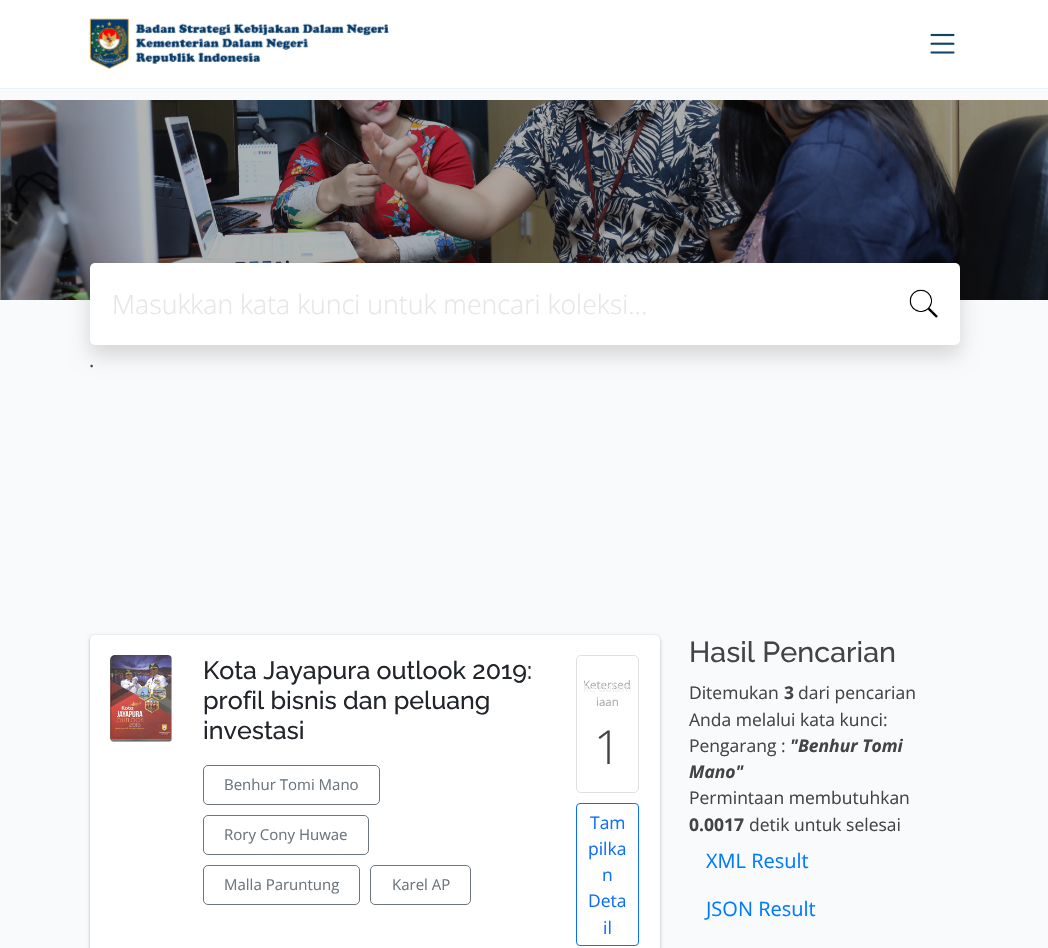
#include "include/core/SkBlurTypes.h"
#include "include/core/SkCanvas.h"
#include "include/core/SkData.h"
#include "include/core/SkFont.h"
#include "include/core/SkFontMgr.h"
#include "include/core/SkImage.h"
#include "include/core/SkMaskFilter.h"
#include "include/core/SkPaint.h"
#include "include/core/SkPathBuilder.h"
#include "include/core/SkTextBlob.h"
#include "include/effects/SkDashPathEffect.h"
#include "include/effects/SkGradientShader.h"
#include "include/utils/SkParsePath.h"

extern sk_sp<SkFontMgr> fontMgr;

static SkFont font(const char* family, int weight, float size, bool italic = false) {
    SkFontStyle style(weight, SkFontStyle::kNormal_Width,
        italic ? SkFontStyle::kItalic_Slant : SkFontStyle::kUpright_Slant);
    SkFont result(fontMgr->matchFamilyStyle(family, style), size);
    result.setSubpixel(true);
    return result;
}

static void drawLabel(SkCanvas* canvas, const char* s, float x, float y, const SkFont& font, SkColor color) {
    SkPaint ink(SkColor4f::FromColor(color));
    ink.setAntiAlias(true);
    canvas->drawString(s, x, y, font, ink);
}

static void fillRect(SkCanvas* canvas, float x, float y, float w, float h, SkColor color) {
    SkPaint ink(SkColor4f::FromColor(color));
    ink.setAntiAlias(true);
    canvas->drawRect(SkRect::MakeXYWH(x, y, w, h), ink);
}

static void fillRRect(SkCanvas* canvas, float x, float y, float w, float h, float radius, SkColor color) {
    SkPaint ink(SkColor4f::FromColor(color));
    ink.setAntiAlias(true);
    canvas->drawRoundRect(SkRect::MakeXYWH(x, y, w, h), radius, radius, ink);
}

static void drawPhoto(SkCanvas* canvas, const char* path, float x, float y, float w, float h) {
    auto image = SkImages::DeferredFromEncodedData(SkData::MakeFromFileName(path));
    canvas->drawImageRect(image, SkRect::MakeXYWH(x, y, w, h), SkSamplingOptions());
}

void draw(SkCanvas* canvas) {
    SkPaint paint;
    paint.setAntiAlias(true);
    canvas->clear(0xFFF8FAFC);
    fillRect(canvas, 0, 0, 1048, 88, 0xFFFFFFFF);
    fillRect(canvas, 0, 88, 1048, 1, 0xFFE6F2FB);
    drawPhoto(canvas, "assets/img1.png", 89, 18, 300, 51);
    drawPhoto(canvas, "assets/img2.png", 930, 33, 25, 21);
    drawPhoto(canvas, "assets/img3.png", 0, 100, 1048, 200);
    paint.setColor(0x26000000);
    paint.setMaskFilter(SkMaskFilter::MakeBlur(kNormal_SkBlurStyle, 10));
    canvas->drawRoundRect(SkRect::MakeXYWH(90, 273, 870, 82), 5, 5, paint);
    paint.setMaskFilter(nullptr);
    fillRRect(canvas, 90, 263, 870, 82, 5, 0xFFFFFFFF);
    drawPhoto(canvas, "assets/img4.png", 909, 289, 29, 29);
    SkFont font1 = font("Open Sans", 300, 26.7f);
    drawLabel(canvas, "Masukkan kata kunci untuk mencari koleksi...", 112, 314, font1, 0xFFE6E6E6);
    SkFont font2 = font("Open Sans", 400, 20);
    drawLabel(canvas, ".", 89, 367, font2, 0xFF444444);
    paint.setColor(0x3D000000);
    paint.setMaskFilter(SkMaskFilter::MakeBlur(kNormal_SkBlurStyle, 1));
    canvas->drawRoundRect(SkRect::MakeXYWH(90, 636, 570, 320), 5, 5, paint);
    paint.setMaskFilter(nullptr);
    paint.setColor(0x1F000000);
    paint.setMaskFilter(SkMaskFilter::MakeBlur(kNormal_SkBlurStyle, 2));
    canvas->drawRoundRect(SkRect::MakeXYWH(90, 636, 570, 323), 5, 5, paint);
    paint.setMaskFilter(nullptr);
    fillRRect(canvas, 90, 635, 570, 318, 5, 0xFFFFFFFF);
    drawPhoto(canvas, "assets/img5.png", 110, 655, 62, 87);
    SkFont font3 = font("Raleway", 500, 25);
    drawLabel(canvas, "Kota Jayapura outlook 2019:", 203, 679, font3, 0xFF212529);
    drawLabel(canvas, "profil bisnis dan peluang", 203, 709, font3, 0xFF212529);
    drawLabel(canvas, "investasi", 203, 739, font3, 0xFF212529);
    paint.setStroke(true);
    paint.setStrokeWidth(1);
    paint.setColor(0xFF6C757D);
    canvas->drawRoundRect(SkRect::MakeXYWH(203.5f, 765.5f, 176, 39), 4.5f, 4.5f, paint);
    SkFont font4 = font("Open Sans", 400, 15);
    drawLabel(canvas, "Benhur Tomi Mano", 224, 790, font4, 0xFF6C757D);
    canvas->drawRoundRect(SkRect::MakeXYWH(203.5f, 815.5f, 165, 39), 4.5f, 4.5f, paint);
    drawLabel(canvas, "Rory Cony Huwae", 224, 840, font4, 0xFF6C757D);
    canvas->drawRoundRect(SkRect::MakeXYWH(203.5f, 865.5f, 156, 39), 4.5f, 4.5f, paint);
    drawLabel(canvas, "Malla Paruntung", 224, 890, font4, 0xFF6C757D);
    canvas->drawRoundRect(SkRect::MakeXYWH(370.5f, 865.5f, 100, 39), 4.5f, 4.5f, paint);
    drawLabel(canvas, "Karel AP", 392, 890, font4, 0xFF6C757D);
    paint.setColor(0xFFDFDFDF);
    canvas->drawRoundRect(SkRect::MakeXYWH(576.5f, 655.5f, 62, 137), 4.5f, 4.5f, paint);
    SkFont font5 = font("Open Sans", 400, 11.5f);
    drawLabel(canvas, "Ketersed", 583, 689, font5, 0xFFAAAAAA);
    drawLabel(canvas, "iaan", 596, 706, font5, 0xFFAAAAAA);
    SkFont font6 = font("Open Sans", 300, 47);
    drawLabel(canvas, "1", 594, 764, font6, 0xFF444444);
    drawLabel(canvas, "ke dalam", 583, 692, font5, 0xFFEEEEEE);
    paint.setColor(0xFF0D6EFD);
    canvas->drawRoundRect(SkRect::MakeXYWH(576.5f, 803.5f, 62, 142), 3.5f, 3.5f, paint);
    SkFont font7 = font("Open Sans", 400, 17.5f);
    drawLabel(canvas, "Tam", 590, 829, font7, 0xFF0D6EFD);
    drawLabel(canvas, "pilka", 588, 855, font7, 0xFF0D6EFD);
    drawLabel(canvas, "n", 602, 881, font7, 0xFF0D6EFD);
    drawLabel(canvas, "Deta", 588, 907, font7, 0xFF0D6EFD);
    drawLabel(canvas, "il", 603, 934, font7, 0xFF0D6EFD);
    SkFont font8 = font("Raleway", 500, 28.75f);
    drawLabel(canvas, "Hasil Pencarian", 689, 662, font8, 0xFF444444);
    drawLabel(canvas, "Ditemukan", 689, 699, font7, 0xFF444444);
    SkFont font9 = font("Open Sans", 700, 17.5f);
    drawLabel(canvas, "3", 784, 699, font9, 0xFF444444);
    drawLabel(canvas, "dari pencarian", 798, 699, font7, 0xFF444444);
    drawLabel(canvas, "Anda melalui kata kunci:", 689, 726, font7, 0xFF444444);
    drawLabel(canvas, "Pengarang :", 689, 752, font7, 0xFF444444);
    SkFont font10 = font("Open Sans", 700, 17.5f, true);
    drawLabel(canvas, "\"Benhur Tomi", 790, 752, font10, 0xFF444444);
    drawLabel(canvas, "Mano\"", 689, 778, font10, 0xFF444444);
    drawLabel(canvas, "Permintaan membutuhkan", 689, 804, font7, 0xFF444444);
    drawLabel(canvas, "0.0017", 689, 831, font9, 0xFF444444);
    drawLabel(canvas, "detik untuk selesai", 749, 831, font7, 0xFF444444);
    drawLabel(canvas, "XML Result", 706, 868, font2, 0xFF007BFF);
    drawLabel(canvas, "JSON Result", 706, 916, font2, 0xFF007BFF);
}
